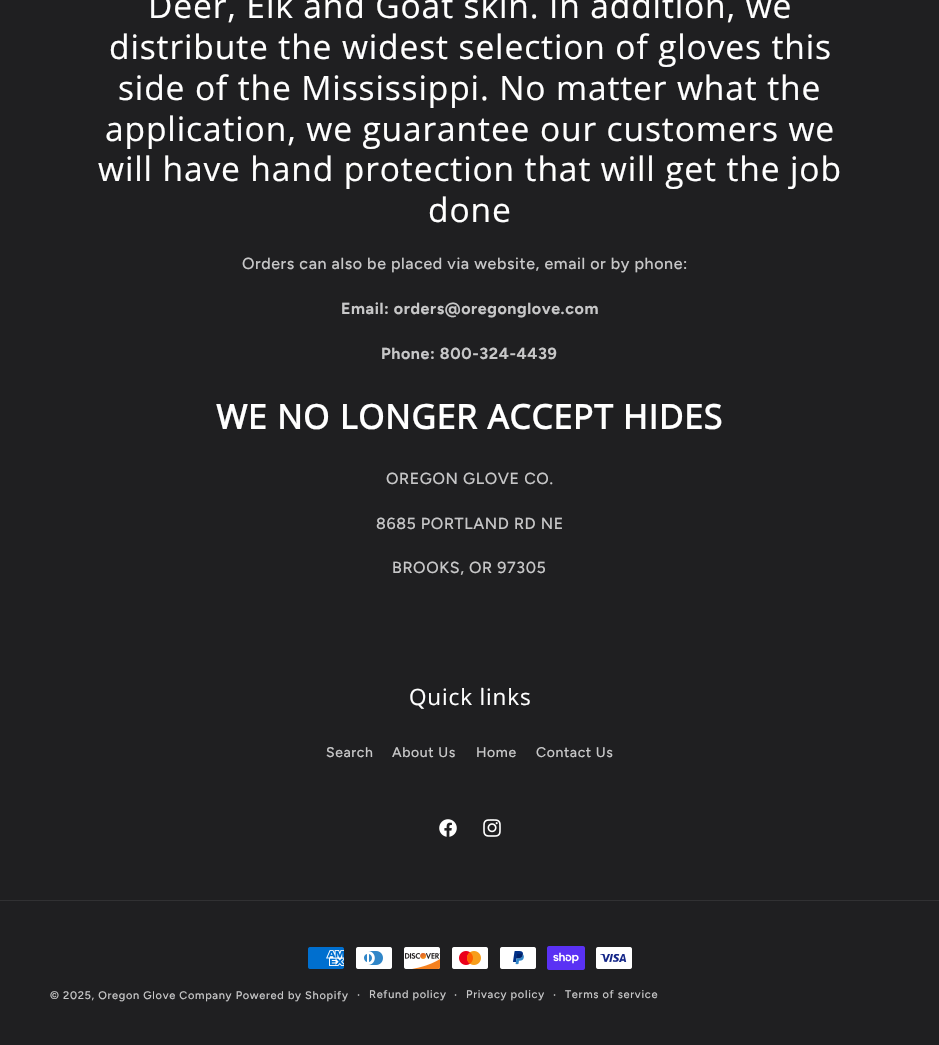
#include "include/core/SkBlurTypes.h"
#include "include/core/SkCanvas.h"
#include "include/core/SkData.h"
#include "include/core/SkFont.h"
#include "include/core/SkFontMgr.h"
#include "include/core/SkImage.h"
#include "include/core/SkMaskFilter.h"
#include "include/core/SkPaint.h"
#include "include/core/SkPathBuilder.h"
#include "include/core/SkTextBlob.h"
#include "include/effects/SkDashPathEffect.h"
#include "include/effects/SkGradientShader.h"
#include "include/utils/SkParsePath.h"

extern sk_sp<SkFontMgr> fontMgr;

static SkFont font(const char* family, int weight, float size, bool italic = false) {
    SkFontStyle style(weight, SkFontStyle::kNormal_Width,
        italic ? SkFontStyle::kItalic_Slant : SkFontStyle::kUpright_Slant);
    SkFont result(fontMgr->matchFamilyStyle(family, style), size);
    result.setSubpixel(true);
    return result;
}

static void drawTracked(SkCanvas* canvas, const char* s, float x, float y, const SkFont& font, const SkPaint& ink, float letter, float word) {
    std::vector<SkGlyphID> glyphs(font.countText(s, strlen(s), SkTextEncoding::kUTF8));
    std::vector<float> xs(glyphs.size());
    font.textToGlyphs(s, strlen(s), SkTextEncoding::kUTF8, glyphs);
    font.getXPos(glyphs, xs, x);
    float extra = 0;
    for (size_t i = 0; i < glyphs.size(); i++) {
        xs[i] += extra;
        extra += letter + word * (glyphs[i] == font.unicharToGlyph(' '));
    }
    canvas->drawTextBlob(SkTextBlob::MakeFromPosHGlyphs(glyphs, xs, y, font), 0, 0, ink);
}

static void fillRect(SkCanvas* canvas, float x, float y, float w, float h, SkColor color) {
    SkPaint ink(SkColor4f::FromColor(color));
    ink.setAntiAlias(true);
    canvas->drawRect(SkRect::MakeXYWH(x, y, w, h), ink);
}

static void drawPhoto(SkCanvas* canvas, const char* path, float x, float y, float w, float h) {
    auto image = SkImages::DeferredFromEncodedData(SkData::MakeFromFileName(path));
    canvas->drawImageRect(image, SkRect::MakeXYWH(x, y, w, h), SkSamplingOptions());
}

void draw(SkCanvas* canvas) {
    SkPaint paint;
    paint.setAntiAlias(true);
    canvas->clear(0xFF1F1F21);
    SkFont font1 = font("Open Sans", 400, 33.6f);
    paint.setColor(0xFFFFFFFF);
    drawTracked(canvas, "Deer, Elk and Goat skin. In addition, we", 148, 18, font1, paint, 0.85f, 0);
    drawTracked(canvas, "distribute the widest selection of gloves this", 109, 59, font1, paint, 0.85f, 0);
    drawTracked(canvas, "side of the Mississippi. No matter what the", 118, 100, font1, paint, 0.85f, 0);
    drawTracked(canvas, "application, we guarantee our customers we", 105, 141, font1, paint, 0.85f, 0);
    drawTracked(canvas, "will have hand protection that will get the job", 98, 181, font1, paint, 0.85f, 0);
    drawTracked(canvas, "done", 428, 222, font1, paint, 0.85f, 0);
    SkFont font2 = font("Figtree", 500, 16);
    paint.setColor(0xFFC7C7C8);
    drawTracked(canvas, "Orders can also be placed via website, email or by phone:", 242, 269, font2, paint, 0.6f, 0);
    SkFont font3 = font("Figtree", 700, 16);
    drawTracked(canvas, "Email: orders@oregonglove.com", 341, 314, font3, paint, 0.6f, 0);
    drawTracked(canvas, "Phone: 800-324-4439", 381, 359, font3, paint, 0.6f, 0);
    SkFont font4 = font("Open Sans", 700, 33.6f);
    paint.setColor(0xFFFFFFFF);
    drawTracked(canvas, "WE NO LONGER ACCEPT HIDES", 216, 429, font4, paint, 0.85f, 0);
    paint.setColor(0xFFC7C7C8);
    drawTracked(canvas, "OREGON GLOVE CO.", 386, 484, font2, paint, 0.6f, 0);
    drawTracked(canvas, "8685 PORTLAND RD NE", 376, 529, font2, paint, 0.6f, 0);
    drawTracked(canvas, "BROOKS, OR 97305", 392, 573, font2, paint, 0.6f, 0);
    SkFont font5 = font("Open Sans", 400, 22.5f);
    paint.setColor(0xFFFFFFFF);
    drawTracked(canvas, "Quick links", 409, 705, font5, paint, 0.85f, 0);
    SkFont font6 = font("Figtree", 500, 14);
    paint.setColor(0xFFC7C7C8);
    drawTracked(canvas, "Search", 326, 757, font6, paint, 0.6f, 0);
    drawTracked(canvas, "About Us", 392, 757, font6, paint, 0.6f, 0);
    drawTracked(canvas, "Home", 476, 757, font6, paint, 0.6f, 0);
    drawTracked(canvas, "Contact Us", 536, 757, font6, paint, 0.6f, 0);
    drawPhoto(canvas, "assets/img1.png", 439, 819, 18, 18);
    drawPhoto(canvas, "assets/img2.png", 483, 819, 18, 18);
    fillRect(canvas, 0, 900, 939, 1, 0xFF313133);
    drawPhoto(canvas, "assets/img3.png", 308, 947, 36, 22);
    drawPhoto(canvas, "assets/img4.png", 356, 947, 36, 22);
    drawPhoto(canvas, "assets/img5.png", 404, 947, 36, 22);
    drawPhoto(canvas, "assets/img6.png", 452, 947, 36, 22);
    drawPhoto(canvas, "assets/img7.png", 500, 947, 36, 22);
    drawPhoto(canvas, "assets/img8.png", 547, 946, 38, 24);
    drawPhoto(canvas, "assets/img9.png", 596, 947, 36, 22);
    SkFont font7 = font("Figtree", 500, 11);
    drawTracked(canvas, "© 2025, Oregon Glove Company Powered by Shopify", 50, 999, font7, paint, 0.7f, 0);
    SkFont font8 = font("Figtree", 500, 12);
    drawTracked(canvas, "·", 357, 999, font8, paint, 0.7f, 0);
    drawTracked(canvas, "Refund policy", 369, 998, font7, paint, 0.7f, 0);
    drawTracked(canvas, "·", 454, 999, font8, paint, 0.7f, 0);
    drawTracked(canvas, "Privacy policy", 466, 998, font7, paint, 0.7f, 0);
    drawTracked(canvas, "·", 553, 999, font8, paint, 0.7f, 0);
    drawTracked(canvas, "Terms of service", 565, 998, font7, paint, 0.7f, 0);
}
